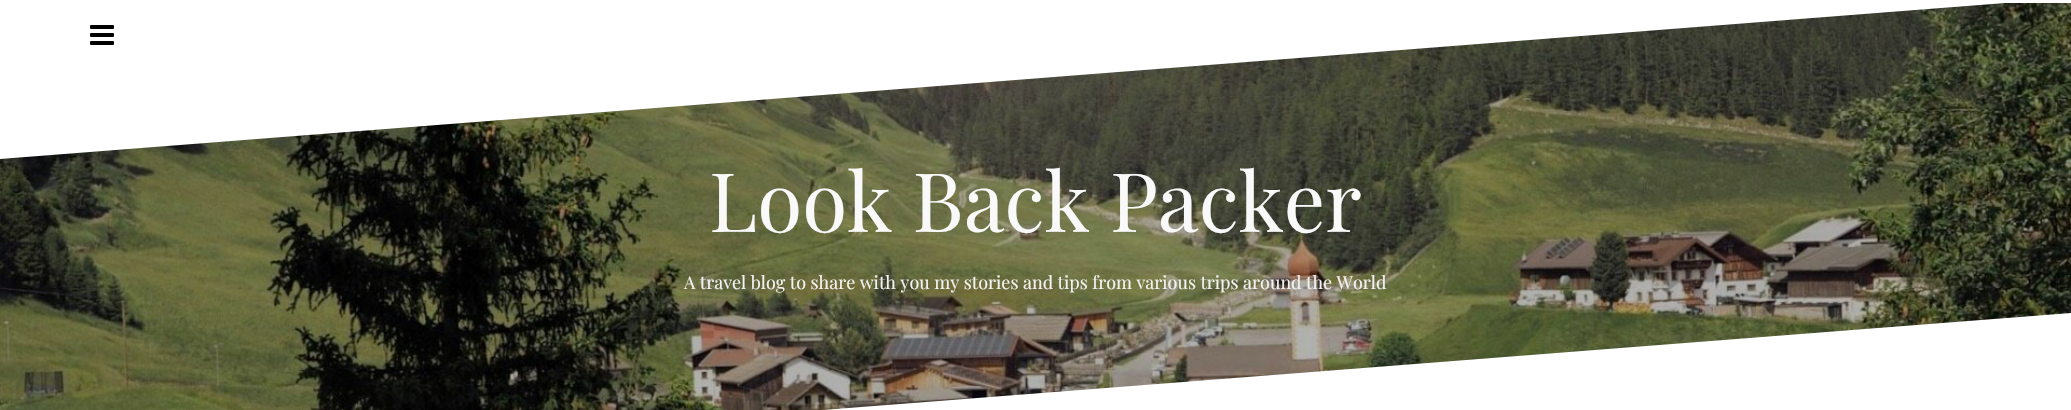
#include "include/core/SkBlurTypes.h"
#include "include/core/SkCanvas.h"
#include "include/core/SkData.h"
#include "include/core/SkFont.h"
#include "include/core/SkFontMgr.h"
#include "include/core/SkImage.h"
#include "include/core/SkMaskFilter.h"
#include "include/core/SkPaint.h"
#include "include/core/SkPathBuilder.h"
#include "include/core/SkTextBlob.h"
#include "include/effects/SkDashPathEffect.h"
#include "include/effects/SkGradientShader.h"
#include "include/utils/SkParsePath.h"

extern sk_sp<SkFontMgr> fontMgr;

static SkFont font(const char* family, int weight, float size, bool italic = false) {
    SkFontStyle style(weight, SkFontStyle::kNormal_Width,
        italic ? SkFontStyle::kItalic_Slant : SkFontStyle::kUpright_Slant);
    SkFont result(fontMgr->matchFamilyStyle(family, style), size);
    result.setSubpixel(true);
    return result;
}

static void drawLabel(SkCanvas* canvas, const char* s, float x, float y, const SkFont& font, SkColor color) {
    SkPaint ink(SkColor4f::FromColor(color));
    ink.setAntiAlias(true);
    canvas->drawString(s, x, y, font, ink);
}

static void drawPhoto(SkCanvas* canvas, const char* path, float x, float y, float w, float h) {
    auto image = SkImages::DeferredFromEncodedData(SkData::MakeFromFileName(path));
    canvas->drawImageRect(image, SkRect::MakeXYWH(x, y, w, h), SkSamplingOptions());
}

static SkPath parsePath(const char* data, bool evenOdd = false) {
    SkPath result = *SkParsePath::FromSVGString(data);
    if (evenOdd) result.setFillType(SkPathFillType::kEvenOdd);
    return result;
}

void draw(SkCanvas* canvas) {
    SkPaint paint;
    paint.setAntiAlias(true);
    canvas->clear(0xFFFFFFFF);
    drawPhoto(canvas, "assets/img2.png", 0, 3, 2071, 407);
    paint.setColor(0xFFFFFFFF);
    canvas->drawPath(parsePath("M0 159V0H2044"), paint);
    drawPhoto(canvas, "assets/img1.png", 90, 25, 24, 20);
    SkFont font1 = font("Playfair Display", 400, 82);
    drawLabel(canvas, "Look Back Packer", 709, 232, font1, 0xFFF9F9F9);
    SkFont font2 = font("Playfair Display", 400, 18);
    drawLabel(canvas, "A travel blog to share with you my stories and tips from various trips around the World", 684, 289, font2, 0xFFF2F2F2);
    canvas->drawPath(parsePath("M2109 310V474H0"), paint);
}
